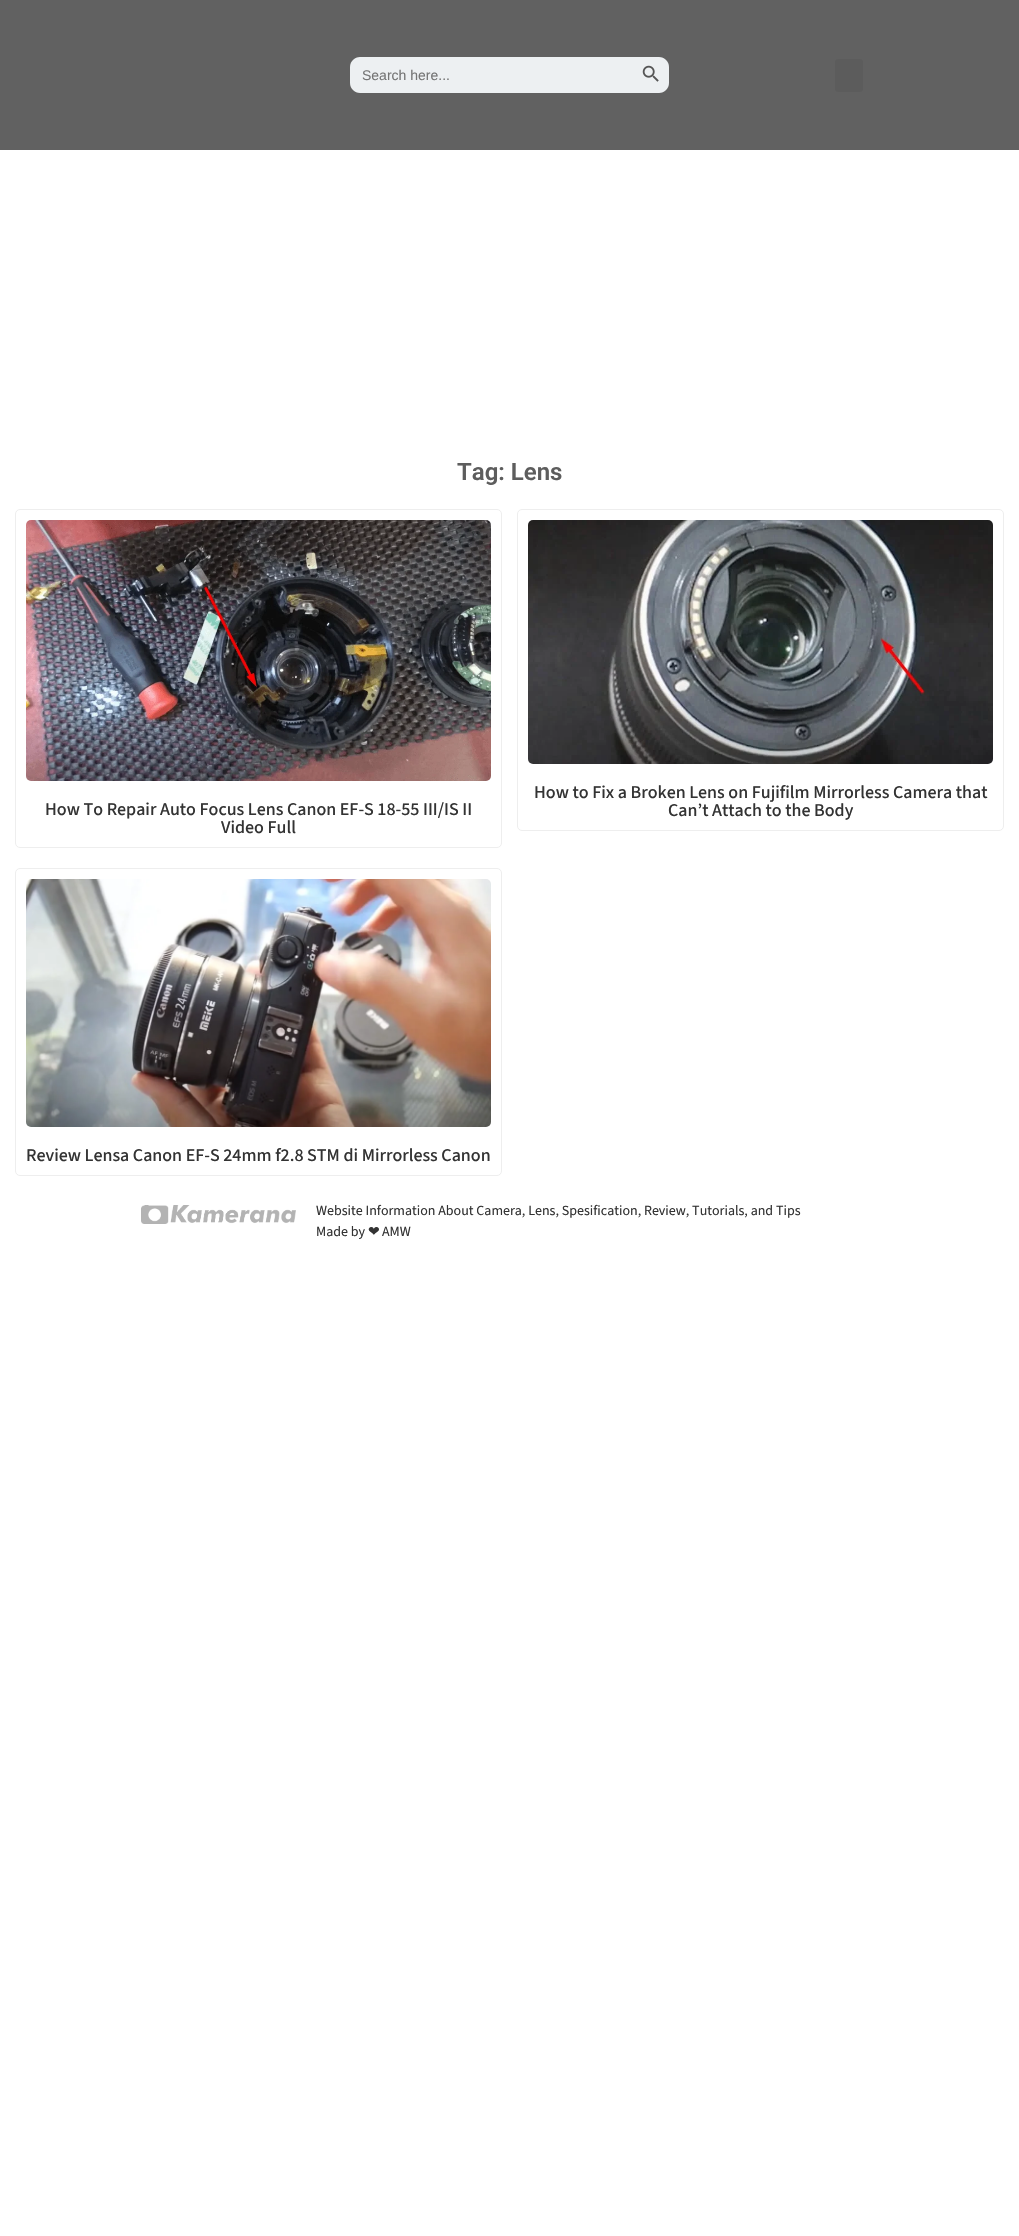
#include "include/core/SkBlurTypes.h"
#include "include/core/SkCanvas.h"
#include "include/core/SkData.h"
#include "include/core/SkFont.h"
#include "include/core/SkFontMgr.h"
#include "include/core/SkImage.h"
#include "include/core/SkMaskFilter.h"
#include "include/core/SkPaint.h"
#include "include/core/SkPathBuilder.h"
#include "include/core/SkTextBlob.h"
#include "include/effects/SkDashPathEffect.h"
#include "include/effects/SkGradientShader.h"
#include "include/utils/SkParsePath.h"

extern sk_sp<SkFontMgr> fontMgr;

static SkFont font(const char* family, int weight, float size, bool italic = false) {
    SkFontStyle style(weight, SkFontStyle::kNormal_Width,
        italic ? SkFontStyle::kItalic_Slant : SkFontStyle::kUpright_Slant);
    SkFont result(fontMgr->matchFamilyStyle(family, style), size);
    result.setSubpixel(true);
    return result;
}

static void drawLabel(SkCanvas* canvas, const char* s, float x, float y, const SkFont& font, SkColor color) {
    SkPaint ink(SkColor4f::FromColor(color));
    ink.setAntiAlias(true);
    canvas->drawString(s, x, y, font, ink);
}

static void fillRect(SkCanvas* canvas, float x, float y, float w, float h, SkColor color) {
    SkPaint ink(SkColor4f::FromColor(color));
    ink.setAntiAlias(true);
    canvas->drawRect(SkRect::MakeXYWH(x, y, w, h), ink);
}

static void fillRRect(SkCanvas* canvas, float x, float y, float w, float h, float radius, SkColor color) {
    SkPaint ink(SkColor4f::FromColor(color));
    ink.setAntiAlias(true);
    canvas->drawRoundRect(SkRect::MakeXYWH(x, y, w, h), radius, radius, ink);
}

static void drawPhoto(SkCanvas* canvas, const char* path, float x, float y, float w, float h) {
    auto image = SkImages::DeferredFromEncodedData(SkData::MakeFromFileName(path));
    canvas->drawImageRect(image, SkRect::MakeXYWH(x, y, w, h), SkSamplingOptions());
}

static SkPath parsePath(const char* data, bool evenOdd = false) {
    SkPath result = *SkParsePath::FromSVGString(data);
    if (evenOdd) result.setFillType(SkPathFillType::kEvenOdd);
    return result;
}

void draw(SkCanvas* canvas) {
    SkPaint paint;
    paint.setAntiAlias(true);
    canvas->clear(0xFFFFFFFF);
    fillRect(canvas, 0, 0, 1019, 150, 0xFF616161);
    paint.setColor(0xFFEDF0F2);
    canvas->drawPath(parsePath("M360 57H633V93H360C354.5 93 350 88.5 350 83V67C350 61.5 354.5 57 360 57Z"), paint);
    SkFont font1 = font("Liberation Sans", 400, 14);
    drawLabel(canvas, "Search here...", 362, 80, font1, 0xFF757575);
    canvas->drawPath(parsePath("M633 57H659C664.5 57 669 61.5 669 67V83C669 88.5 664.5 93 659 93H633Z"), paint);
    drawPhoto(canvas, "assets/img1.png", 642, 65, 17, 17);
    fillRRect(canvas, 835, 59, 28, 33, 3, 0xFF5C5C5C);
    SkFont font2 = font("Roboto", 600, 24);
    drawLabel(canvas, "Tag: Lens", 457, 480, font2, 0xFF5D5D5D);
    paint.setStroke(true);
    paint.setStrokeWidth(1);
    paint.setColor(0xFFEEEEEE);
    canvas->drawRoundRect(SkRect::MakeXYWH(15.5f, 509.5f, 486, 338), 4.5f, 4.5f, paint);
    drawPhoto(canvas, "assets/img2.png", 26, 520, 465, 261);
    SkFont font3 = font("Source Sans 3", 500, 18);
    drawLabel(canvas, "How To Repair Auto Focus Lens Canon EF-S 18-55 III/IS II", 45, 815, font3, 0xFF333333);
    drawLabel(canvas, "Video Full", 221, 833, font3, 0xFF333333);
    canvas->drawRoundRect(SkRect::MakeXYWH(517.5f, 509.5f, 486, 321), 4.5f, 4.5f, paint);
    drawPhoto(canvas, "assets/img3.png", 528, 520, 465, 244);
    drawLabel(canvas, "How to Fix a Broken Lens on Fujifilm Mirrorless Camera that", 534, 798, font3, 0xFF333333);
    drawLabel(canvas, "Can’t Attach to the Body", 668, 816, font3, 0xFF333333);
    canvas->drawRoundRect(SkRect::MakeXYWH(15.5f, 868.5f, 486, 307), 4.5f, 4.5f, paint);
    drawPhoto(canvas, "assets/img4.png", 26, 879, 465, 248);
    drawLabel(canvas, "Review Lensa Canon EF-S 24mm f2.8 STM di Mirrorless Canon", 26, 1161, font3, 0xFF333333);
    drawPhoto(canvas, "assets/img5.png", 141, 1205, 155, 19);
    SkFont font4 = font("Source Sans 3", 400, 14);
    drawLabel(canvas, "Website Information About Camera, Lens, Spesification, Review, Tutorials, and Tips", 316, 1215, font4, 0xFF333333);
    drawLabel(canvas, "Made by", 316, 1236, font4, 0xFF333333);
    SkFont font5 = font("DejaVu Sans", 400, 14);
    drawLabel(canvas, "❤", 368, 1236, font5, 0xFF333333);
    drawLabel(canvas, "AMW", 382, 1236, font4, 0xFF333333);
}
